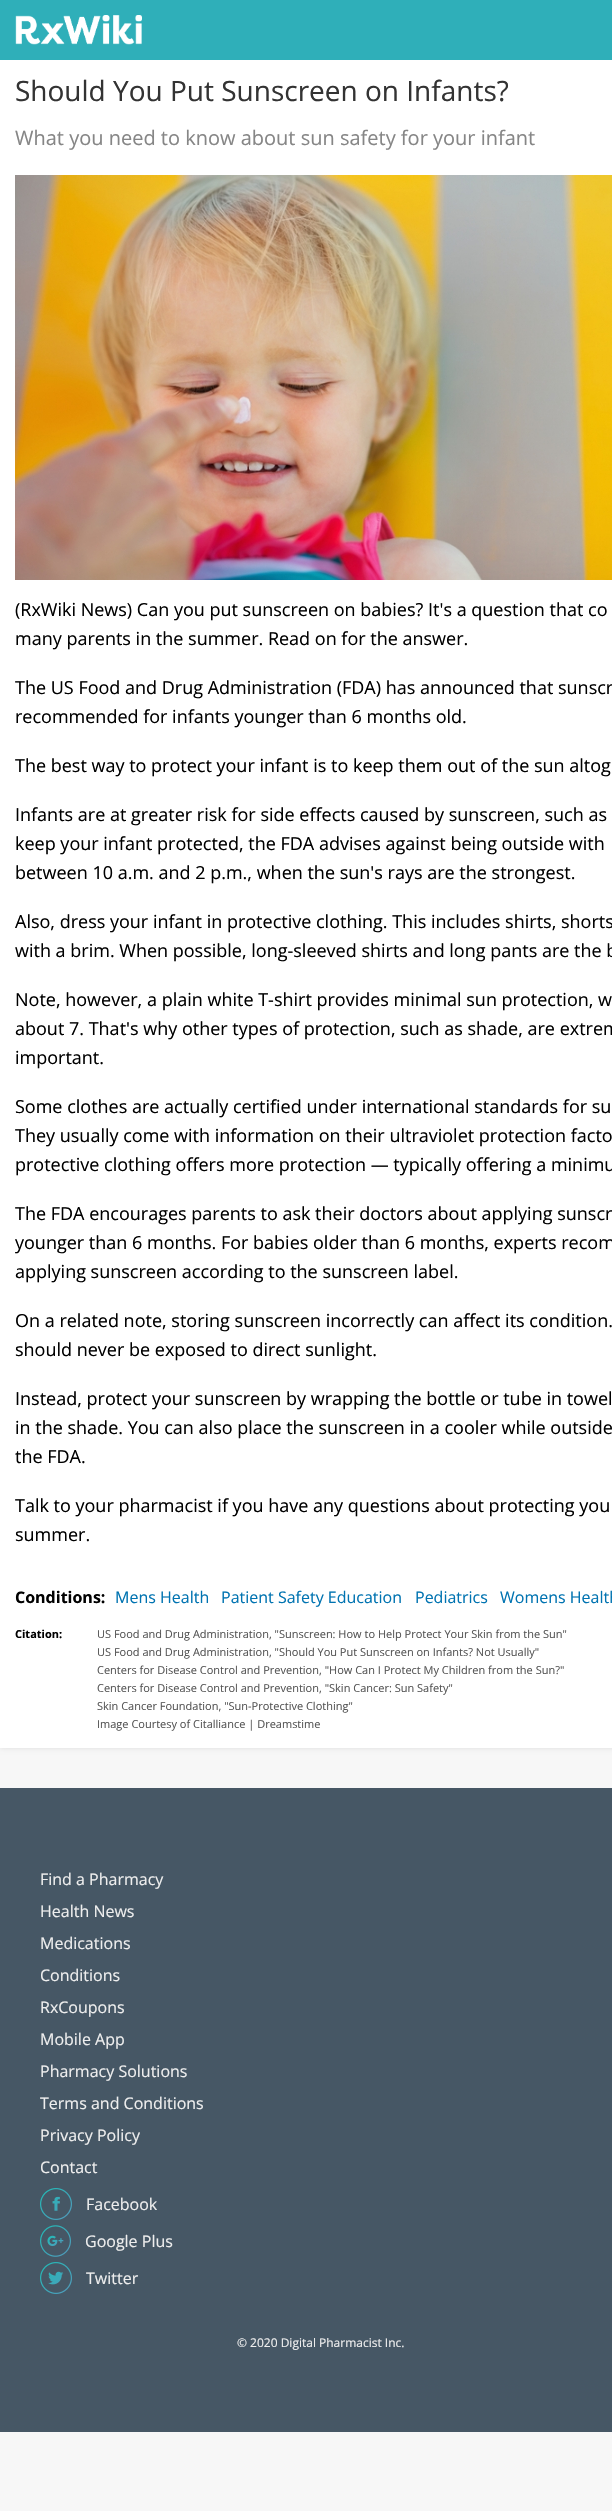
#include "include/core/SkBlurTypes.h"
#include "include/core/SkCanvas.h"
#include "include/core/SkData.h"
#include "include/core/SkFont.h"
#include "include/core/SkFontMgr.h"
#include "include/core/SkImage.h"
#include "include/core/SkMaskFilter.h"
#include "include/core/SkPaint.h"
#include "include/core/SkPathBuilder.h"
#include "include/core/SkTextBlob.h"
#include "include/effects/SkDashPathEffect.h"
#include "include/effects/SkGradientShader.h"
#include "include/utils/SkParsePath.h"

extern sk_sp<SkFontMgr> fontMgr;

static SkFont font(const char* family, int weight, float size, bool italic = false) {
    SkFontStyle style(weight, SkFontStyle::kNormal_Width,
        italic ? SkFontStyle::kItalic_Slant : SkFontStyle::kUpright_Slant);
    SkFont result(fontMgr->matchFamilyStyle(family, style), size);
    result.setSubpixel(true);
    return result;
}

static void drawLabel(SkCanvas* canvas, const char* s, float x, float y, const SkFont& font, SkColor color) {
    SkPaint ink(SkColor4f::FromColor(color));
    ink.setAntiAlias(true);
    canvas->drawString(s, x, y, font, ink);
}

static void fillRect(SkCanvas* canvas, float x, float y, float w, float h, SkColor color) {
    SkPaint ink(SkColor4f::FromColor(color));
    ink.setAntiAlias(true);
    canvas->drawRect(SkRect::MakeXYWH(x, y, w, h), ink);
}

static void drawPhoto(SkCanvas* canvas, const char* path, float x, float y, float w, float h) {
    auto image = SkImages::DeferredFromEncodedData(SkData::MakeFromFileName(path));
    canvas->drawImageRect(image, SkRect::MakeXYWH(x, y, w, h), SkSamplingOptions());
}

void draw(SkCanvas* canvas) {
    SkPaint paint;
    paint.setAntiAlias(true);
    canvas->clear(0xFFF7F7F7);
    paint.setColor(0x1A000000);
    paint.setMaskFilter(SkMaskFilter::MakeBlur(kNormal_SkBlurStyle, 2.5f));
    canvas->drawRect(SkRect::MakeXYWH(0, 45, 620, 1703), paint);
    paint.setMaskFilter(nullptr);
    fillRect(canvas, 0, 0, 612, 60, 0xFF2FAFB9);
    drawPhoto(canvas, "assets/img1.png", 15, 15, 127, 30);
    fillRect(canvas, 0, 60, 612, 1688, 0xFFFFFFFF);
    SkFont font1 = font("Open Sans", 400, 28);
    drawLabel(canvas, "Should You Put Sunscreen on Infants?", 15, 101, font1, 0xFF333333);
    SkFont font2 = font("Open Sans", 400, 20);
    drawLabel(canvas, "What you need to know about sun safety for your infant", 15, 145, font2, 0xFF868686);
    drawPhoto(canvas, "assets/img2.png", 15, 175, 597, 405);
    SkFont font3 = font("Open Sans", 400, 18);
    drawLabel(canvas, "(RxWiki News) Can you put sunscreen on babies? It's a question that co", 15, 616, font3, 0xFF000000);
    drawLabel(canvas, "many parents in the summer. Read on for the answer.", 15, 645, font3, 0xFF000000);
    drawLabel(canvas, "The US Food and Drug Administration (FDA) has announced that sunscr", 15, 694, font3, 0xFF000000);
    drawLabel(canvas, "recommended for infants younger than 6 months old.", 15, 723, font3, 0xFF000000);
    drawLabel(canvas, "The best way to protect your infant is to keep them out of the sun altog", 15, 772, font3, 0xFF000000);
    drawLabel(canvas, "Infants are at greater risk for side effects caused by sunscreen, such as", 15, 821, font3, 0xFF000000);
    drawLabel(canvas, "keep your infant protected, the FDA advises against being outside with", 15, 850, font3, 0xFF000000);
    drawLabel(canvas, "between 10 a.m. and 2 p.m., when the sun's rays are the strongest.", 15, 879, font3, 0xFF000000);
    drawLabel(canvas, "Also, dress your infant in protective clothing. This includes shirts, shorts", 15, 928, font3, 0xFF000000);
    drawLabel(canvas, "with a brim. When possible, long-sleeved shirts and long pants are the b", 15, 957, font3, 0xFF000000);
    drawLabel(canvas, "Note, however, a plain white T-shirt provides minimal sun protection, w", 15, 1006, font3, 0xFF000000);
    drawLabel(canvas, "about 7. That's why other types of protection, such as shade, are extrem", 15, 1035, font3, 0xFF000000);
    drawLabel(canvas, "important.", 15, 1064, font3, 0xFF000000);
    drawLabel(canvas, "Some clothes are actually certified under international standards for su", 15, 1113, font3, 0xFF000000);
    drawLabel(canvas, "They usually come with information on their ultraviolet protection facto", 15, 1142, font3, 0xFF000000);
    drawLabel(canvas, "protective clothing offers more protection — typically offering a minimu", 15, 1171, font3, 0xFF000000);
    drawLabel(canvas, "The FDA encourages parents to ask their doctors about applying sunscr", 15, 1220, font3, 0xFF000000);
    drawLabel(canvas, "younger than 6 months. For babies older than 6 months, experts recom", 15, 1249, font3, 0xFF000000);
    drawLabel(canvas, "applying sunscreen according to the sunscreen label.", 15, 1278, font3, 0xFF000000);
    drawLabel(canvas, "On a related note, storing sunscreen incorrectly can affect its condition.", 15, 1327, font3, 0xFF000000);
    drawLabel(canvas, "should never be exposed to direct sunlight.", 15, 1356, font3, 0xFF000000);
    drawLabel(canvas, "Instead, protect your sunscreen by wrapping the bottle or tube in towel", 15, 1405, font3, 0xFF000000);
    drawLabel(canvas, "in the shade. You can also place the sunscreen in a cooler while outside", 15, 1434, font3, 0xFF000000);
    drawLabel(canvas, "the FDA.", 15, 1463, font3, 0xFF000000);
    drawLabel(canvas, "Talk to your pharmacist if you have any questions about protecting you", 15, 1512, font3, 0xFF000000);
    drawLabel(canvas, "summer.", 15, 1541, font3, 0xFF000000);
    SkFont font4 = font("Open Sans", 700, 16);
    drawLabel(canvas, "Conditions:", 15, 1603, font4, 0xFF000000);
    SkFont font5 = font("Open Sans", 400, 16);
    drawLabel(canvas, "Mens Health", 115, 1603, font5, 0xFF0073B1);
    drawLabel(canvas, "Patient Safety Education", 221, 1603, font5, 0xFF0073B1);
    drawLabel(canvas, "Pediatrics", 415, 1603, font5, 0xFF0073B1);
    drawLabel(canvas, "Womens Health", 500, 1603, font5, 0xFF0073B1);
    SkFont font6 = font("Open Sans", 700, 11);
    drawLabel(canvas, "Citation:", 15, 1638, font6, 0xFF000000);
    SkFont font7 = font("Open Sans", 400, 11);
    drawLabel(canvas, "US Food and Drug Administration, \"Sunscreen: How to Help Protect Your Skin from the Sun\"", 97, 1638, font7, 0xFF555555);
    drawLabel(canvas, "US Food and Drug Administration, \"Should You Put Sunscreen on Infants? Not Usually\"", 97, 1656, font7, 0xFF555555);
    drawLabel(canvas, "Centers for Disease Control and Prevention, \"How Can I Protect My Children from the Sun?\"", 97, 1674, font7, 0xFF555555);
    drawLabel(canvas, "Centers for Disease Control and Prevention, \"Skin Cancer: Sun Safety\"", 97, 1692, font7, 0xFF555555);
    drawLabel(canvas, "Skin Cancer Foundation, \"Sun-Protective Clothing\"", 97, 1710, font7, 0xFF555555);
    drawLabel(canvas, "Image Courtesy of Citalliance | Dreamstime", 97, 1728, font7, 0xFF555555);
    fillRect(canvas, 0, 1788, 612, 644, 0xFF465765);
    drawLabel(canvas, "Find a Pharmacy", 40, 1885, font5, 0xFFEEEEEE);
    drawLabel(canvas, "Health News", 40, 1917, font5, 0xFFEEEEEE);
    drawLabel(canvas, "Medications", 40, 1949, font5, 0xFFEEEEEE);
    drawLabel(canvas, "Conditions", 40, 1981, font5, 0xFFEEEEEE);
    drawLabel(canvas, "RxCoupons", 40, 2013, font5, 0xFFEEEEEE);
    drawLabel(canvas, "Mobile App", 40, 2045, font5, 0xFFEEEEEE);
    drawLabel(canvas, "Pharmacy Solutions", 40, 2077, font5, 0xFFEEEEEE);
    drawLabel(canvas, "Terms and Conditions", 40, 2109, font5, 0xFFEEEEEE);
    drawLabel(canvas, "Privacy Policy", 40, 2141, font5, 0xFFEEEEEE);
    drawLabel(canvas, "Contact", 40, 2173, font5, 0xFFEEEEEE);
    drawPhoto(canvas, "assets/img3.png", 40, 2188, 32, 32);
    drawLabel(canvas, "Facebook", 86, 2210, font5, 0xFFEEEEEE);
    drawPhoto(canvas, "assets/img4.png", 40, 2225, 31, 32);
    drawLabel(canvas, "Google Plus", 85, 2247, font5, 0xFFEEEEEE);
    drawPhoto(canvas, "assets/img5.png", 40, 2262, 32, 32);
    drawLabel(canvas, "Twitter", 86, 2284, font5, 0xFFEEEEEE);
    SkFont font8 = font("Open Sans", 400, 12);
    drawLabel(canvas, "© 2020 Digital Pharmacist Inc.", 237, 2347, font8, 0xFFEEEEEE);
}
